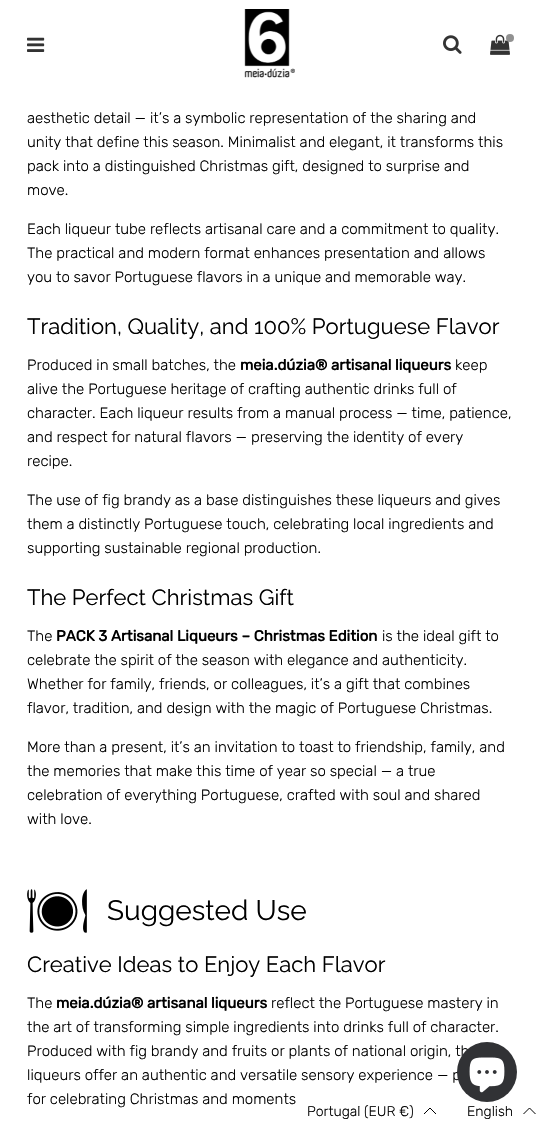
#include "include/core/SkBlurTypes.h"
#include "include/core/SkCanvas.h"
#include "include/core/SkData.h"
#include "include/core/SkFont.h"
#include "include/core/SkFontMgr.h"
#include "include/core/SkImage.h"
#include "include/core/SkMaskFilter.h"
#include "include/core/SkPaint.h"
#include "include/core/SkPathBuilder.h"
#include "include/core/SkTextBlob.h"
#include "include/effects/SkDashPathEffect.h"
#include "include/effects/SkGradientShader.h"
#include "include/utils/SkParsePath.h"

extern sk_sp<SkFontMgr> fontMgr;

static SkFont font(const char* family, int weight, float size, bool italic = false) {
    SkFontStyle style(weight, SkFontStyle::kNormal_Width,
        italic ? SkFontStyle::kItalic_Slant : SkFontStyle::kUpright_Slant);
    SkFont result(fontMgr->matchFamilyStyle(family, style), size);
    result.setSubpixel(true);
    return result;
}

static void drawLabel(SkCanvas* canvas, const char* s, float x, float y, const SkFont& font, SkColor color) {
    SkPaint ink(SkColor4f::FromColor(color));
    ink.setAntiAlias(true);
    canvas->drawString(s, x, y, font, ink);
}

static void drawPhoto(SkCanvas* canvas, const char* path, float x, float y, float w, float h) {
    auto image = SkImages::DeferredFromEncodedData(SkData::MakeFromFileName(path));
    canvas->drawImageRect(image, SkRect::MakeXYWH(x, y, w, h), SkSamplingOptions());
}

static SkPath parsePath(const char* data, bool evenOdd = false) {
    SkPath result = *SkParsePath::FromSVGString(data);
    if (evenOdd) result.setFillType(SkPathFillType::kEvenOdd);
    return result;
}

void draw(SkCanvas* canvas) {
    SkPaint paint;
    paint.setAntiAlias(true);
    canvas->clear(0xFFFFFFFF);
    drawPhoto(canvas, "assets/img1.png", 27, 37, 18, 15);
    drawPhoto(canvas, "assets/img2.png", 244, 9, 51, 69);
    drawPhoto(canvas, "assets/img3.png", 443, 35, 19, 19);
    drawPhoto(canvas, "assets/img4.png", 490, 34, 20, 21);
    paint.setColor(0xFF919191);
    canvas->drawCircle(510, 38, 4, paint);
    SkFont font1 = font("Rubik", 300, 15);
    drawLabel(canvas, "aesthetic detail — it’s a symbolic representation of the sharing and", 27, 123, font1, 0xFF000000);
    drawLabel(canvas, "unity that define this season. Minimalist and elegant, it transforms this", 27, 147, font1, 0xFF000000);
    drawLabel(canvas, "pack into a distinguished Christmas gift, designed to surprise and", 27, 171, font1, 0xFF000000);
    drawLabel(canvas, "move.", 27, 195, font1, 0xFF000000);
    drawLabel(canvas, "Each liqueur tube reflects artisanal care and a commitment to quality.", 27, 234, font1, 0xFF000000);
    drawLabel(canvas, "The practical and modern format enhances presentation and allows", 27, 258, font1, 0xFF000000);
    drawLabel(canvas, "you to savor Portuguese flavors in a unique and memorable way.", 27, 282, font1, 0xFF000000);
    SkFont font2 = font("Raleway", 400, 22.05f);
    drawLabel(canvas, "Tradition, Quality, and 100% Portuguese Flavor", 27, 334, font2, 0xFF000000);
    drawLabel(canvas, "Produced in small batches, the", 27, 370, font1, 0xFF000000);
    SkFont font3 = font("Rubik", 700, 15);
    drawLabel(canvas, "meia.dúzia® artisanal liqueurs", 240, 370, font3, 0xFF000000);
    drawLabel(canvas, "keep", 455, 370, font1, 0xFF000000);
    drawLabel(canvas, "alive the Portuguese heritage of crafting authentic drinks full of", 27, 394, font1, 0xFF000000);
    drawLabel(canvas, "character. Each liqueur results from a manual process — time, patience,", 27, 418, font1, 0xFF000000);
    drawLabel(canvas, "and respect for natural flavors — preserving the identity of every", 27, 442, font1, 0xFF000000);
    drawLabel(canvas, "recipe.", 27, 466, font1, 0xFF000000);
    drawLabel(canvas, "The use of fig brandy as a base distinguishes these liqueurs and gives", 27, 505, font1, 0xFF000000);
    drawLabel(canvas, "them a distinctly Portuguese touch, celebrating local ingredients and", 27, 529, font1, 0xFF000000);
    drawLabel(canvas, "supporting sustainable regional production.", 27, 553, font1, 0xFF000000);
    drawLabel(canvas, "The Perfect Christmas Gift", 27, 605, font2, 0xFF000000);
    drawLabel(canvas, "The", 27, 641, font1, 0xFF000000);
    drawLabel(canvas, "PACK 3 Artisanal Liqueurs – Christmas Edition", 56, 641, font3, 0xFF000000);
    drawLabel(canvas, "is the ideal gift to", 382, 641, font1, 0xFF000000);
    drawLabel(canvas, "celebrate the spirit of the season with elegance and authenticity.", 27, 665, font1, 0xFF000000);
    drawLabel(canvas, "Whether for family, friends, or colleagues, it’s a gift that combines", 27, 689, font1, 0xFF000000);
    drawLabel(canvas, "flavor, tradition, and design with the magic of Portuguese Christmas.", 27, 713, font1, 0xFF000000);
    drawLabel(canvas, "More than a present, it’s an invitation to toast to friendship, family, and", 27, 752, font1, 0xFF000000);
    drawLabel(canvas, "the memories that make this time of year so special — a true", 27, 776, font1, 0xFF000000);
    drawLabel(canvas, "celebration of everything Portuguese, crafted with soul and shared", 27, 800, font1, 0xFF000000);
    drawLabel(canvas, "with love.", 27, 824, font1, 0xFF000000);
    drawPhoto(canvas, "assets/img5.png", 27, 889, 60, 44);
    SkFont font4 = font("Raleway", 400, 28);
    drawLabel(canvas, "Suggested Use", 107, 920, font4, 0xFF000000);
    drawLabel(canvas, "Creative Ideas to Enjoy Each Flavor", 27, 972, font2, 0xFF000000);
    drawLabel(canvas, "The", 27, 1008, font1, 0xFF000000);
    drawLabel(canvas, "meia.dúzia® artisanal liqueurs", 56, 1008, font3, 0xFF000000);
    drawLabel(canvas, "reflect the Portuguese mastery in", 271, 1008, font1, 0xFF000000);
    drawLabel(canvas, "the art of transforming simple ingredients into drinks full of character.", 27, 1032, font1, 0xFF000000);
    drawLabel(canvas, "Produced with fig brandy and fruits or plants of national origin, th", 27, 1056, font1, 0xFF000000);
    drawLabel(canvas, "liqueurs offer an authentic and versatile sensory experience — p", 27, 1080, font1, 0xFF000000);
    drawLabel(canvas, "for celebrating Christmas and moments", 27, 1104, font1, 0xFF000000);
    paint.setColor(0xFF313235);
    canvas->drawCircle(487, 1072, 30, paint);
    drawPhoto(canvas, "assets/img6.png", 469, 1057, 36, 36);
    SkFont font5 = font("Rubik", 300, 14);
    drawLabel(canvas, "Portugal (EUR €)", 307, 1116, font5, 0xFF000000);
    paint.setStroke(true);
    paint.setStrokeWidth(1);
    paint.setColor(0xFF000000);
    canvas->drawPath(parsePath("M436 1114L430 1108L424 1114"), paint);
    drawLabel(canvas, "English", 467, 1116, font5, 0xFF000000);
    canvas->drawPath(parsePath("M535.5 1114L529.5 1108L523.5 1114"), paint);
}
